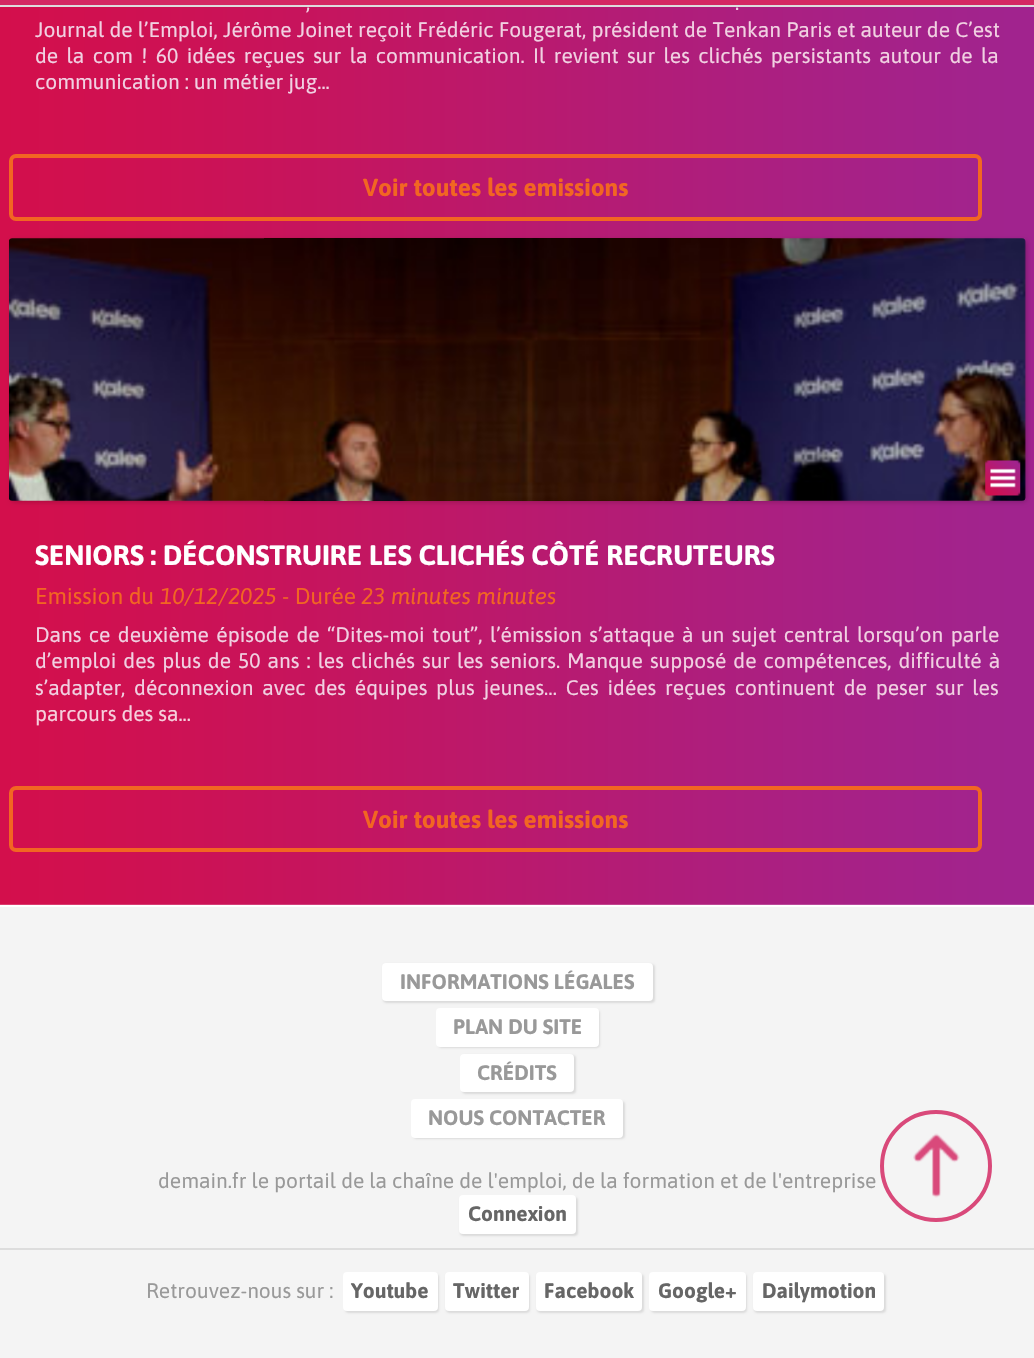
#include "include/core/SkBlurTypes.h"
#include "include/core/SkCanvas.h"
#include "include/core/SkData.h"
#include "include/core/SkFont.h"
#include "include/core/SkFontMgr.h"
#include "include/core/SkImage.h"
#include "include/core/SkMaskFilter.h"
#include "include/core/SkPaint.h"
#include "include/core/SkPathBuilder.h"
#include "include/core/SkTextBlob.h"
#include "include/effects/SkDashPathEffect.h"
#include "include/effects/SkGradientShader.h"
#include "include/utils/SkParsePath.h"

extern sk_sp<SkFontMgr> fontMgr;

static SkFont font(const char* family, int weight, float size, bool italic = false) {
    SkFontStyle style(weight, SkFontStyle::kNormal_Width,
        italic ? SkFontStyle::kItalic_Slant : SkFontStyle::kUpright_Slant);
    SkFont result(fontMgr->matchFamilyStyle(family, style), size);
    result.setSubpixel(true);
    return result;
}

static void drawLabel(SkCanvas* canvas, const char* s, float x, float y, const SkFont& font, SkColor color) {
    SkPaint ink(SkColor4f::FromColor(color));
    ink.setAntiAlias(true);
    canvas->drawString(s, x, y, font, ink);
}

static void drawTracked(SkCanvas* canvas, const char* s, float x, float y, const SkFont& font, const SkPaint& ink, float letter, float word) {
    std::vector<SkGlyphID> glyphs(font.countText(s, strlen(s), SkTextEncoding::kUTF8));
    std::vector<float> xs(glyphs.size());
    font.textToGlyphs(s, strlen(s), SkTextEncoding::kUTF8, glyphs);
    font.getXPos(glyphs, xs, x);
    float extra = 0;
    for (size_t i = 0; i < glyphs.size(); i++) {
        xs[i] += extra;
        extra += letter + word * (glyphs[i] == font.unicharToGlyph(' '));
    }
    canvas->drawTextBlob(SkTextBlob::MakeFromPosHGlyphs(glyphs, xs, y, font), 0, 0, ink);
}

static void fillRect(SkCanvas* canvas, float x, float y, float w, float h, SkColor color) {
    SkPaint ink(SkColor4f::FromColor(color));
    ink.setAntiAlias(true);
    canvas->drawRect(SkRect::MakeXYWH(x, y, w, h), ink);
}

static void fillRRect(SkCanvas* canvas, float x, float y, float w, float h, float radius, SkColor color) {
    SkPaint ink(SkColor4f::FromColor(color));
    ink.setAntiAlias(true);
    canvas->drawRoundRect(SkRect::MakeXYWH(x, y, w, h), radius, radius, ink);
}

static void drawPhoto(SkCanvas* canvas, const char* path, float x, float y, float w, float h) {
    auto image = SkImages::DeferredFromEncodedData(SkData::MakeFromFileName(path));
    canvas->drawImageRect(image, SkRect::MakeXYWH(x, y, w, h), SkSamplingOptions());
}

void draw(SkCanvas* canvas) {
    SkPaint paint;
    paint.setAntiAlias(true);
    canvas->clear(0xFFFFFFFF);
    fillRect(canvas, 0, 0, 1034, 5, 0xFFD42863);
    fillRect(canvas, 0, 5, 1034, 2, 0xFFDDDDDD);
    drawPhoto(canvas, "assets/img1.png", 0, 7, 1034, 898);
    SkFont font1 = font("Asap", 400, 21);
    paint.setColor(0xFFF1D1E2);
    drawTracked(canvas, ",", 306, 10, font1, paint, 0, 3);
    drawTracked(canvas, ".", 735, 10, font1, paint, 0, 3);
    drawTracked(canvas, "Journal de l’Emploi, Jérôme Joinet reçoit Frédéric Fougerat, président de Tenkan Paris et auteur de C’est", 35, 37, font1, paint, 0, 0.2f);
    drawTracked(canvas, "de la com ! 60 idées reçues sur la communication. Il revient sur les clichés persistants autour de la", 35, 63, font1, paint, 0, 3.4f);
    drawLabel(canvas, "communication : un métier jug...", 35, 89, font1, 0xFFF1D1E2);
    paint.setStroke(true);
    paint.setStrokeWidth(4);
    paint.setColor(0xFFF26622);
    canvas->drawRoundRect(SkRect::MakeXYWH(11, 156, 969, 63), 5, 5, paint);
    SkFont font2 = font("Asap", 700, 24.5f);
    drawLabel(canvas, "Voir toutes les emissions", 363, 196, font2, 0xFFF26622);
    paint.setStroke(false);
    paint.setColor(0x33000000);
    paint.setMaskFilter(SkMaskFilter::MakeBlur(kNormal_SkBlurStyle, 2.5f));
    canvas->drawRoundRect(SkRect::MakeXYWH(11, 240, 1016, 262), 4, 4, paint);
    paint.setMaskFilter(nullptr);
    drawPhoto(canvas, "assets/img2.png", 9, 238, 1017, 263);
    drawPhoto(canvas, "assets/img3.png", 985, 460, 36, 36);
    SkFont font3 = font("Asap", 700, 28);
    drawLabel(canvas, "SENIORS : DÉCONSTRUIRE LES CLICHÉS CÔTÉ RECRUTEURS", 35, 565, font3, 0xFFFFFFFF);
    SkFont font4 = font("Asap", 400, 22.75f);
    drawLabel(canvas, "Emission du", 35, 604, font4, 0xFFF26622);
    SkFont font5 = font("Asap", 400, 22.75f, true);
    drawLabel(canvas, "10/12/2025", 160, 604, font5, 0xFFF26622);
    drawLabel(canvas, "- Durée", 282, 604, font4, 0xFFF26622);
    drawLabel(canvas, "23 minutes minutes", 361, 604, font5, 0xFFF26622);
    paint.setColor(0xFFF1D1E2);
    drawTracked(canvas, "Dans ce deuxième épisode de “Dites-moi tout”, l’émission s’attaque à un sujet central lorsqu’on parle", 35, 642, font1, paint, 0, 2.4f);
    drawTracked(canvas, "d’emploi des plus de 50 ans : les clichés sur les seniors. Manque supposé de compétences, difficulté à", 35, 668, font1, paint, 0, 2);
    drawTracked(canvas, "s’adapter, déconnexion avec des équipes plus jeunes… Ces idées reçues continuent de peser sur les", 35, 695, font1, paint, 0, 3.75f);
    drawLabel(canvas, "parcours des sa...", 35, 721, font1, 0xFFF6CFDC);
    paint.setStroke(true);
    paint.setColor(0xFFF26622);
    canvas->drawRoundRect(SkRect::MakeXYWH(11, 788, 969, 62), 5, 5, paint);
    drawLabel(canvas, "Voir toutes les emissions", 363, 828, font2, 0xFFF26622);
    fillRect(canvas, 0, 907, 1034, 451, 0xFFF4F4F4);
    paint.setStroke(false);
    paint.setColor(0x1A000000);
    paint.setMaskFilter(SkMaskFilter::MakeBlur(kNormal_SkBlurStyle, 1));
    canvas->drawRoundRect(SkRect::MakeXYWH(383, 964, 272, 39), 4, 4, paint);
    paint.setMaskFilter(nullptr);
    fillRRect(canvas, 382, 963, 271, 38, 4, 0xFFFFFFFF);
    SkFont font6 = font("Asap", 700, 21);
    drawLabel(canvas, "INFORMATIONS LÉGALES", 400, 989, font6, 0xFF999999);
    paint.setMaskFilter(SkMaskFilter::MakeBlur(kNormal_SkBlurStyle, 1));
    canvas->drawRoundRect(SkRect::MakeXYWH(438, 1010, 162, 38), 4, 4, paint);
    paint.setMaskFilter(nullptr);
    fillRRect(canvas, 436, 1008, 163, 39, 4, 0xFFFFFFFF);
    drawLabel(canvas, "PLAN DU SITE", 453, 1034, font6, 0xFF999999);
    paint.setMaskFilter(SkMaskFilter::MakeBlur(kNormal_SkBlurStyle, 1));
    canvas->drawRoundRect(SkRect::MakeXYWH(462, 1055, 114, 39), 4, 4, paint);
    paint.setMaskFilter(nullptr);
    fillRRect(canvas, 460, 1054, 114, 38, 4, 0xFFFFFFFF);
    drawLabel(canvas, "CRÉDITS", 477, 1080, font6, 0xFF999999);
    paint.setMaskFilter(SkMaskFilter::MakeBlur(kNormal_SkBlurStyle, 1));
    canvas->drawRoundRect(SkRect::MakeXYWH(413, 1101, 212, 38), 4, 4, paint);
    paint.setMaskFilter(nullptr);
    fillRRect(canvas, 411, 1099, 212, 39, 4, 0xFFFFFFFF);
    drawLabel(canvas, "NOUS CONTACTER", 428, 1125, font6, 0xFF999999);
    drawLabel(canvas, "demain.fr le portail de la chaîne de l'emploi, de la formation et de l'entreprise", 158, 1188, font1, 0xFF999999);
    paint.setMaskFilter(SkMaskFilter::MakeBlur(kNormal_SkBlurStyle, 1));
    canvas->drawRoundRect(SkRect::MakeXYWH(460, 1197, 118, 39), 4, 4, paint);
    paint.setMaskFilter(nullptr);
    fillRRect(canvas, 459, 1195, 117, 39, 4, 0xFFFFFFFF);
    drawLabel(canvas, "Connexion", 468, 1221, font6, 0xFF666666);
    fillRect(canvas, 0, 1248, 1034, 2, 0xFFDDDDDD);
    drawLabel(canvas, "Retrouvez-nous sur :", 146, 1298, font1, 0xFF999999);
    paint.setMaskFilter(SkMaskFilter::MakeBlur(kNormal_SkBlurStyle, 1));
    canvas->drawRoundRect(SkRect::MakeXYWH(345, 1274, 94, 39), 4, 4, paint);
    paint.setMaskFilter(nullptr);
    fillRRect(canvas, 343, 1272, 95, 39, 4, 0xFFFFFFFF);
    drawLabel(canvas, "Youtube", 351, 1298, font6, 0xFF666666);
    paint.setMaskFilter(SkMaskFilter::MakeBlur(kNormal_SkBlurStyle, 1));
    canvas->drawRoundRect(SkRect::MakeXYWH(446, 1274, 84, 39), 4, 4, paint);
    paint.setMaskFilter(nullptr);
    fillRRect(canvas, 445, 1272, 84, 39, 4, 0xFFFFFFFF);
    drawLabel(canvas, "Twitter", 453, 1298, font6, 0xFF666666);
    paint.setMaskFilter(SkMaskFilter::MakeBlur(kNormal_SkBlurStyle, 1));
    canvas->drawRoundRect(SkRect::MakeXYWH(537, 1274, 107, 39), 4, 4, paint);
    paint.setMaskFilter(nullptr);
    fillRRect(canvas, 536, 1272, 106, 39, 4, 0xFFFFFFFF);
    drawLabel(canvas, "Facebook", 544, 1298, font6, 0xFF666666);
    paint.setMaskFilter(SkMaskFilter::MakeBlur(kNormal_SkBlurStyle, 1));
    canvas->drawRoundRect(SkRect::MakeXYWH(651, 1274, 96, 39), 4, 4, paint);
    paint.setMaskFilter(nullptr);
    fillRRect(canvas, 649, 1272, 97, 39, 4, 0xFFFFFFFF);
    drawLabel(canvas, "Google+", 658, 1298, font6, 0xFF666666);
    paint.setMaskFilter(SkMaskFilter::MakeBlur(kNormal_SkBlurStyle, 1));
    canvas->drawRoundRect(SkRect::MakeXYWH(754, 1274, 132, 39), 4, 4, paint);
    paint.setMaskFilter(nullptr);
    fillRRect(canvas, 753, 1272, 131, 39, 4, 0xFFFFFFFF);
    drawLabel(canvas, "Dailymotion", 762, 1298, font6, 0xFF666666);
    drawPhoto(canvas, "assets/img4.png", 913, 1133, 47, 65);
    paint.setStroke(true);
    paint.setColor(0xFFD9497A);
    canvas->drawCircle(936, 1166, 54, paint);
}
